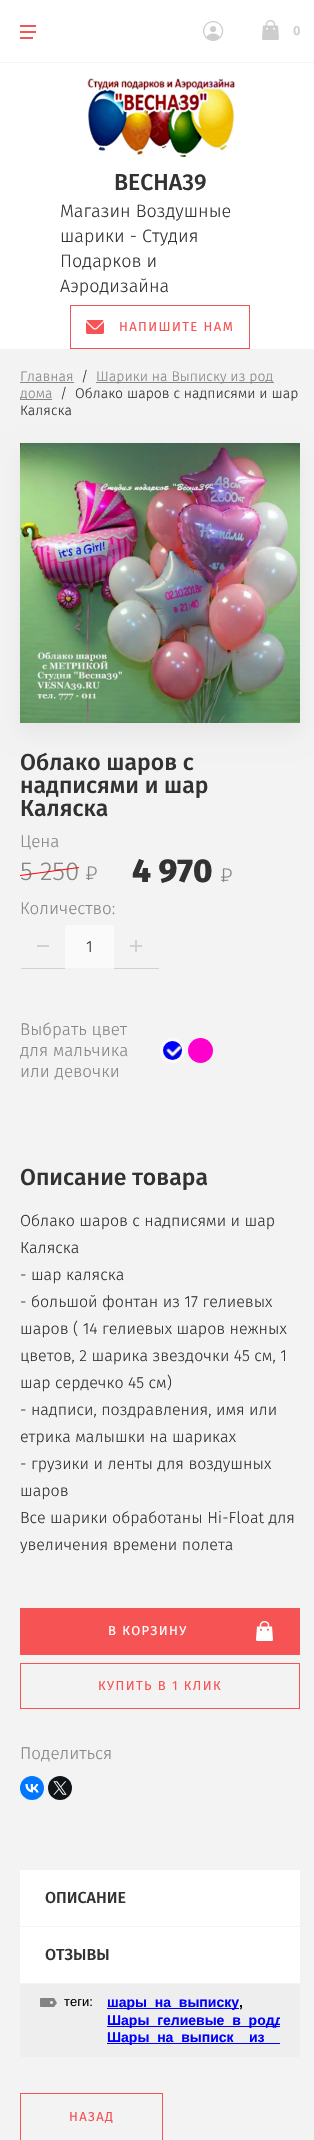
#include "include/core/SkBlurTypes.h"
#include "include/core/SkCanvas.h"
#include "include/core/SkData.h"
#include "include/core/SkFont.h"
#include "include/core/SkFontMgr.h"
#include "include/core/SkImage.h"
#include "include/core/SkMaskFilter.h"
#include "include/core/SkPaint.h"
#include "include/core/SkPathBuilder.h"
#include "include/core/SkTextBlob.h"
#include "include/effects/SkDashPathEffect.h"
#include "include/effects/SkGradientShader.h"
#include "include/utils/SkParsePath.h"

extern sk_sp<SkFontMgr> fontMgr;

static SkFont font(const char* family, int weight, float size, bool italic = false) {
    SkFontStyle style(weight, SkFontStyle::kNormal_Width,
        italic ? SkFontStyle::kItalic_Slant : SkFontStyle::kUpright_Slant);
    SkFont result(fontMgr->matchFamilyStyle(family, style), size);
    result.setSubpixel(true);
    return result;
}

static void drawLabel(SkCanvas* canvas, const char* s, float x, float y, const SkFont& font, SkColor color) {
    SkPaint ink(SkColor4f::FromColor(color));
    ink.setAntiAlias(true);
    canvas->drawString(s, x, y, font, ink);
}

static void drawTracked(SkCanvas* canvas, const char* s, float x, float y, const SkFont& font, const SkPaint& ink, float letter, float word) {
    std::vector<SkGlyphID> glyphs(font.countText(s, strlen(s), SkTextEncoding::kUTF8));
    std::vector<float> xs(glyphs.size());
    font.textToGlyphs(s, strlen(s), SkTextEncoding::kUTF8, glyphs);
    font.getXPos(glyphs, xs, x);
    float extra = 0;
    for (size_t i = 0; i < glyphs.size(); i++) {
        xs[i] += extra;
        extra += letter + word * (glyphs[i] == font.unicharToGlyph(' '));
    }
    canvas->drawTextBlob(SkTextBlob::MakeFromPosHGlyphs(glyphs, xs, y, font), 0, 0, ink);
}

static void fillRect(SkCanvas* canvas, float x, float y, float w, float h, SkColor color) {
    SkPaint ink(SkColor4f::FromColor(color));
    ink.setAntiAlias(true);
    canvas->drawRect(SkRect::MakeXYWH(x, y, w, h), ink);
}

static void drawPhoto(SkCanvas* canvas, const char* path, float x, float y, float w, float h) {
    auto image = SkImages::DeferredFromEncodedData(SkData::MakeFromFileName(path));
    canvas->drawImageRect(image, SkRect::MakeXYWH(x, y, w, h), SkSamplingOptions());
}

static SkPath parsePath(const char* data, bool evenOdd = false) {
    SkPath result = *SkParsePath::FromSVGString(data);
    if (evenOdd) result.setFillType(SkPathFillType::kEvenOdd);
    return result;
}

void draw(SkCanvas* canvas) {
    SkPaint paint;
    paint.setAntiAlias(true);
    canvas->clear(0xFFF3F3F3);
    fillRect(canvas, 0, 0, 314, 349, 0xFFFFFFFF);
    fillRect(canvas, 20, 25, 16, 2, 0xFFF65454);
    fillRect(canvas, 20, 31, 16, 2, 0xFFF65454);
    fillRect(canvas, 20, 37, 13, 2, 0xFFF65454);
    drawPhoto(canvas, "assets/img1.png", 203, 21, 21, 20);
    drawPhoto(canvas, "assets/img2.png", 262, 20, 17, 20);
    SkFont font1 = font("Fira Sans", 500, 13);
    drawLabel(canvas, "0", 293, 35, font1, 0xFFCDCDCD);
    fillRect(canvas, 0, 62, 314, 1, 0xFFF3F3F3);
    drawPhoto(canvas, "assets/img3.png", 86, 78, 149, 80);
    SkFont font2 = font("Fira Sans", 500, 23);
    drawLabel(canvas, "ВЕСНА39", 114, 190, font2, 0xFF323232);
    SkFont font3 = font("Fira Sans", 300, 18);
    drawLabel(canvas, "Магазин Воздушные", 60, 217, font3, 0xFF323232);
    drawLabel(canvas, "шарики - Студия", 60, 242, font3, 0xFF323232);
    drawLabel(canvas, "Подарков и", 60, 267, font3, 0xFF323232);
    drawLabel(canvas, "Аэродизайна", 60, 292, font3, 0xFF323232);
    paint.setStroke(true);
    paint.setStrokeWidth(1);
    paint.setColor(0xFFF65454);
    canvas->drawRect(SkRect::MakeXYWH(70.5f, 305.5f, 179, 43), paint);
    drawPhoto(canvas, "assets/img4.png", 86, 320, 18, 14);
    SkFont font4 = font("Fira Sans", 400, 13);
    paint.setStroke(false);
    drawTracked(canvas, "НАПИШИТЕ НАМ", 119, 331, font4, paint, 1.4f, 0);
    SkFont font5 = font("Fira Sans", 300, 14);
    drawLabel(canvas, "Главная", 20, 381, font5, 0xFF868686);
    fillRect(canvas, 20, 382, 54, 1, 0xFF868686);
    drawLabel(canvas, "/", 81, 381, font5, 0xFF323232);
    fillRect(canvas, 96, 382, 178, 1, 0xFF868686);
    drawLabel(canvas, "Шарики на Выписку из род", 96, 381, font5, 0xFF868686);
    fillRect(canvas, 20, 399, 32, 1, 0xFF868686);
    drawLabel(canvas, "дома", 20, 398, font5, 0xFF868686);
    drawLabel(canvas, "/  Облако шаров с надписями и шар", 60, 398, font5, 0xFF323232);
    drawLabel(canvas, "Каляска", 20, 415, font5, 0xFF323232);
    paint.setColor(0x0D000000);
    paint.setMaskFilter(SkMaskFilter::MakeBlur(kNormal_SkBlurStyle, 10));
    canvas->drawRect(SkRect::MakeXYWH(20, 453, 280, 280), paint);
    paint.setMaskFilter(nullptr);
    drawPhoto(canvas, "assets/img5.png", 20, 443, 280, 280);
    drawLabel(canvas, "Облако шаров с", 20, 770, font2, 0xFF323232);
    drawLabel(canvas, "надписями и шар", 20, 793, font2, 0xFF323232);
    drawLabel(canvas, "Каляска", 20, 816, font2, 0xFF323232);
    SkFont font6 = font("Fira Sans", 300, 17);
    drawLabel(canvas, "Цена", 20, 847, font6, 0xFF868686);
    SkFont font7 = font("Fira Sans", 300, 26);
    drawLabel(canvas, "5 250", 20, 880, font7, 0xFF868686);
    paint.setColor(0xFFFF0000);
    canvas->drawPath(parsePath("M20 875L79 867V868L20 876Z"), paint);
    drawPhoto(canvas, "assets/img6.png", 86, 866, 11, 14);
    SkFont font8 = font("Fira Sans", 800, 33);
    drawLabel(canvas, "4 970", 132, 882, font8, 0xFF323232);
    drawPhoto(canvas, "assets/img6.png", 221, 868, 11, 14);
    drawLabel(canvas, "Количество:", 20, 914, font6, 0xFF868686);
    fillRect(canvas, 37, 945, 12, 2, 0xFFD1D1D1);
    fillRect(canvas, 20, 968, 45, 1, 0xFFD1D1D1);
    fillRect(canvas, 20, 968, 1, 1, 0xFFF3F3F3);
    fillRect(canvas, 65, 925, 49, 43, 0xFFFAFAFA);
    SkFont font9 = font("Fira Sans", 300, 16);
    drawLabel(canvas, "1", 86, 952, font9, 0xFF323232);
    drawPhoto(canvas, "assets/img7.png", 130, 940, 12, 12);
    fillRect(canvas, 114, 968, 45, 1, 0xFFD1D1D1);
    drawLabel(canvas, "Выбрать цвет", 20, 1035, font6, 0xFF868686);
    drawLabel(canvas, "для мальчика", 20, 1056, font6, 0xFF868686);
    drawLabel(canvas, "или девочки", 20, 1077, font6, 0xFF868686);
    paint.setColor(0xFF0000FF);
    canvas->drawCircle(172.5f, 1050.5f, 11, paint);
    paint.setStroke(true);
    paint.setStrokeWidth(3);
    paint.setColor(0xFFFBFBFB);
    canvas->drawCircle(172.5f, 1050.5f, 11, paint);
    drawPhoto(canvas, "assets/img8.png", 165, 1045, 17, 14);
    paint.setStroke(false);
    paint.setColor(0xFFFF00CC);
    canvas->drawCircle(200.5f, 1050.5f, 12.5f, paint);
    drawLabel(canvas, "Описание товара", 20, 1185, font2, 0xFF323232);
    drawLabel(canvas, "Облако шаров с надписями и шар", 20, 1226, font9, 0xFF323232);
    drawLabel(canvas, "Каляска", 20, 1253, font9, 0xFF323232);
    drawLabel(canvas, "- шар каляска", 20, 1280, font9, 0xFF323232);
    drawLabel(canvas, "- большой фонтан из 17 гелиевых", 20, 1307, font9, 0xFF323232);
    drawLabel(canvas, "шаров ( 14 гелиевых шаров нежных", 20, 1334, font9, 0xFF323232);
    drawLabel(canvas, "цветов, 2 шарика звездочки 45 см, 1", 20, 1361, font9, 0xFF323232);
    drawLabel(canvas, "шар сердечко 45 см)", 20, 1388, font9, 0xFF323232);
    drawLabel(canvas, "- надписи, поздравления, имя или", 20, 1415, font9, 0xFF323232);
    drawLabel(canvas, "етрика малышки на шариках", 20, 1442, font9, 0xFF323232);
    drawLabel(canvas, "- грузики и ленты для воздушных", 20, 1469, font9, 0xFF323232);
    drawLabel(canvas, "шаров", 20, 1496, font9, 0xFF323232);
    drawLabel(canvas, "Все шарики обработаны Hi-Float для", 20, 1523, font9, 0xFF323232);
    drawLabel(canvas, "увеличения времени полета", 20, 1550, font9, 0xFF323232);
    fillRect(canvas, 20, 1608, 280, 47, 0xFFF65454);
    drawPhoto(canvas, "assets/img9.png", 256, 1621, 17, 20);
    paint.setColor(0xFFFFFFFF);
    drawTracked(canvas, "В КОРЗИНУ", 108, 1635, font4, paint, 1.4f, 0);
    paint.setStroke(true);
    paint.setStrokeWidth(1);
    paint.setColor(0xFFF65454);
    canvas->drawRect(SkRect::MakeXYWH(20.5f, 1663.5f, 279, 45), paint);
    paint.setStroke(false);
    drawTracked(canvas, "КУПИТЬ В 1 КЛИК", 98, 1690, font4, paint, 1.4f, 0);
    drawLabel(canvas, "Поделиться", 20, 1759, font6, 0xFF868686);
    paint.setColor(0xFF0077FF);
    canvas->drawCircle(32, 1788, 12, paint);
    drawPhoto(canvas, "assets/img10.png", 25, 1784, 14, 9);
    paint.setColor(0xFF0F1419);
    canvas->drawCircle(60, 1788, 12, paint);
    drawPhoto(canvas, "assets/img11.png", 53, 1781, 14, 14);
    fillRect(canvas, 20, 1870, 280, 56, 0xFFFFFFFF);
    SkFont font10 = font("Fira Sans", 500, 16);
    drawLabel(canvas, "ОПИСАНИЕ", 45, 1903, font10, 0xFF323232);
    fillRect(canvas, 20, 1927, 280, 56, 0xFFFFFFFF);
    drawLabel(canvas, "ОТЗЫВЫ", 45, 1960, font10, 0xFF323232);
    fillRect(canvas, 20, 1984, 280, 73, 0xFFEEEEEE);
    drawPhoto(canvas, "assets/img12.png", 40, 1998, 17, 9);
    SkFont font11 = font("Liberation Sans", 400, 13);
    drawLabel(canvas, "теги:", 64, 2006, font11, 0xFF000000);
    fillRect(canvas, 107, 2008, 132, 1, 0xFF0000FF);
    SkFont font12 = font("Liberation Sans", 700, 14);
    drawLabel(canvas, "шары_на_выписку", 107, 2007, font12, 0xFF0000FF);
    drawLabel(canvas, ",", 239, 2007, font12, 0xFF000000);
    fillRect(canvas, 107, 2026, 173, 1, 0xFF0000FF);
    canvas->save();
    canvas->clipRect(SkRect::MakeXYWH(107, 1994, 173, 53));
    drawLabel(canvas, "Шары_гелиевые_в_родд", 107, 2025, font12, 0xFF0000FF);
    canvas->restore();
    fillRect(canvas, 107, 2043, 173, 1, 0xFF0000FF);
    drawLabel(canvas, "Шары_на_выписк", 107, 2042, font12, 0xFF0000FF);
    drawLabel(canvas, "из", 249, 2042, font12, 0xFF0000FF);
    paint.setStroke(true);
    paint.setColor(0xFFF65454);
    canvas->drawRect(SkRect::MakeXYWH(20.5f, 2093.5f, 142, 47), paint);
    paint.setStroke(false);
    drawTracked(canvas, "НАЗАД", 69, 2121, font4, paint, 1.4f, 0);
}
